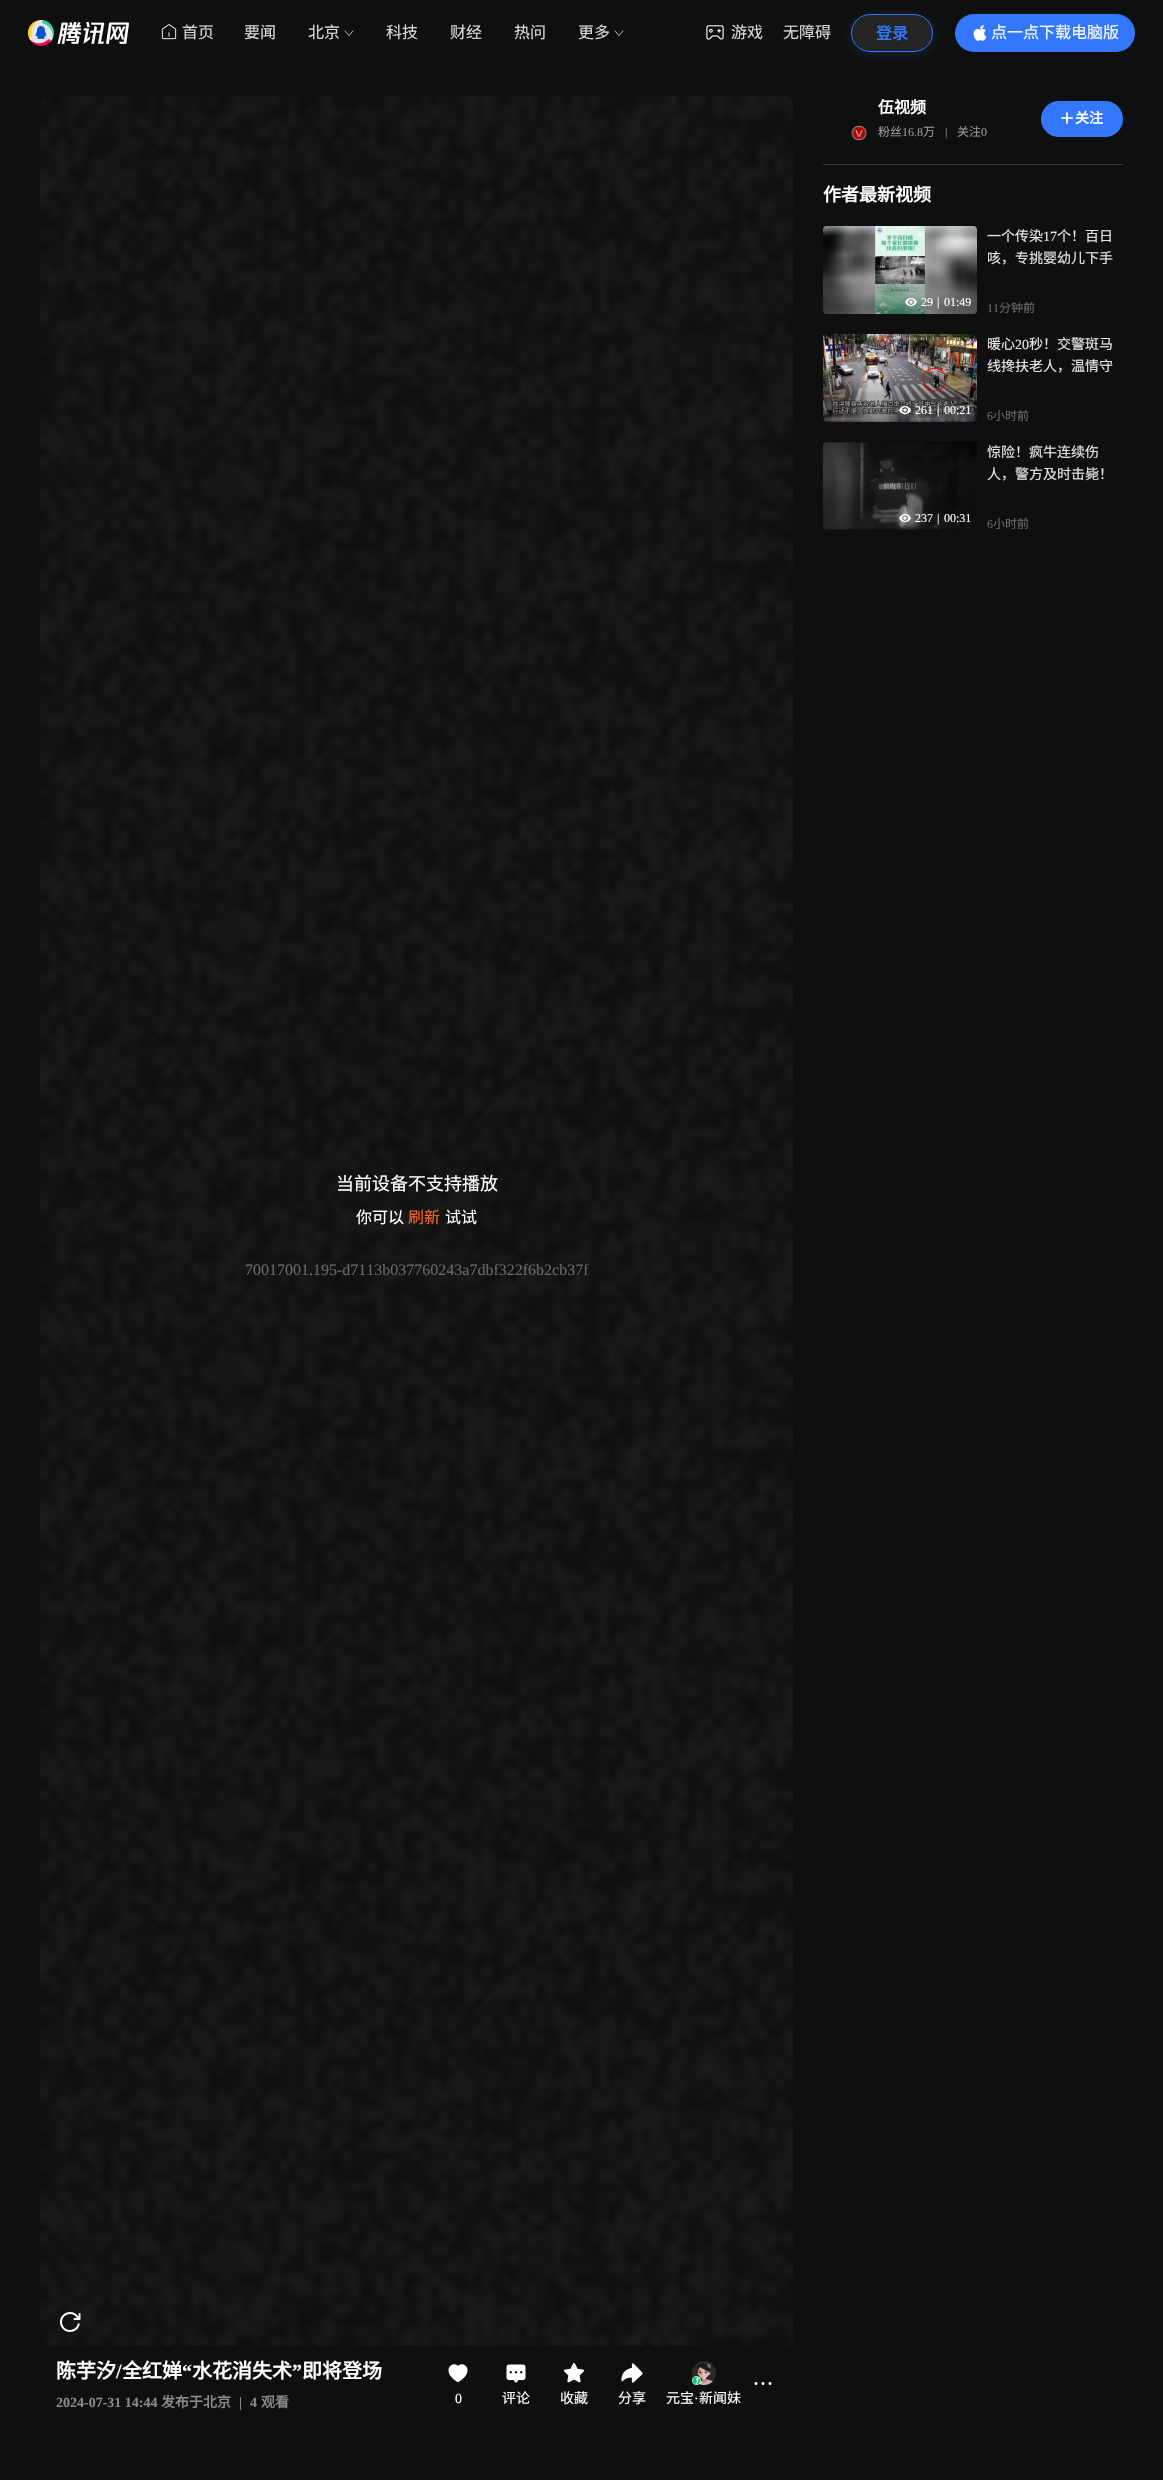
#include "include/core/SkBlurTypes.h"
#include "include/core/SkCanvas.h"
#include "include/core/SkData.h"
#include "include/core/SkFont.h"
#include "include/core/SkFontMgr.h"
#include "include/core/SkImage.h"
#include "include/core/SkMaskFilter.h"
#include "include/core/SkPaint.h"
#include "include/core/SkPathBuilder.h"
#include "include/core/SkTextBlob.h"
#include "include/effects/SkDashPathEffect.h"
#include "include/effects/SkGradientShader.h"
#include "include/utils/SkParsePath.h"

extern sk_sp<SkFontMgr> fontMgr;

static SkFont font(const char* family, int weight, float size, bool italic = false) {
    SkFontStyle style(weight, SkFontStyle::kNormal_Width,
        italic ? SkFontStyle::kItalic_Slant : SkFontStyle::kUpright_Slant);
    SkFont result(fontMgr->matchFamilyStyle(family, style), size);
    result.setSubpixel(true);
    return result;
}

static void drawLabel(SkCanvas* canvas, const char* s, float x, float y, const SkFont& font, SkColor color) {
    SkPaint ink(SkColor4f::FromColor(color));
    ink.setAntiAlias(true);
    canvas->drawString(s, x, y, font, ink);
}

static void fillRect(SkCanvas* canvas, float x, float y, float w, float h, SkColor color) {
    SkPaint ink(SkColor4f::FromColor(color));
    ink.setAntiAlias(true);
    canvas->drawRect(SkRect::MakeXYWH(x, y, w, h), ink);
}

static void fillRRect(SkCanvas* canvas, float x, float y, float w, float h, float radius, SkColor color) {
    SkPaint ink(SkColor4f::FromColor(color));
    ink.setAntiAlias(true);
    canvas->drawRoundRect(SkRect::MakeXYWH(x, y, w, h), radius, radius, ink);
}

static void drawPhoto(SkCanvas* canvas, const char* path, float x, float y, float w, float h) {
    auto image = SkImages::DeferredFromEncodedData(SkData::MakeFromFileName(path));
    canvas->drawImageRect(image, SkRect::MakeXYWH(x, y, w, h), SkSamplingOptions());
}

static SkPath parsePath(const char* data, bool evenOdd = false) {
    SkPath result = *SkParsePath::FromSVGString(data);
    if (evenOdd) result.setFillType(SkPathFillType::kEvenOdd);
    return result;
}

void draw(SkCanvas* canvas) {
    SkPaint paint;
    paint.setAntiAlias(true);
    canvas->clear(0xFF0F0F0F);
    drawPhoto(canvas, "assets/img1.png", 28, 20, 101, 26);
    drawPhoto(canvas, "assets/img2.png", 161, 24, 16, 16);
    SkFont font1 = font("Noto Sans CJK SC", 400, 16);
    drawLabel(canvas, "首页", 182, 38, font1, 0xFFD9D9D9);
    drawLabel(canvas, "要闻", 244, 38, font1, 0xFFD9D9D9);
    drawLabel(canvas, "北京", 308, 38, font1, 0xFFD9D9D9);
    paint.setStroke(true);
    paint.setStrokeWidth(0.7f);
    paint.setStrokeCap(SkPaint::kRound_Cap);
    paint.setStrokeJoin(SkPaint::kRound_Join);
    paint.setColor(0xFFFFFFFF);
    canvas->drawPath(parsePath("M353 31L349 35.5L345 31"), paint);
    drawLabel(canvas, "科技", 386, 38, font1, 0xFFD9D9D9);
    drawLabel(canvas, "财经", 450, 38, font1, 0xFFD9D9D9);
    drawLabel(canvas, "热问", 514, 38, font1, 0xFFD9D9D9);
    drawLabel(canvas, "更多", 578, 38, font1, 0xFFD9D9D9);
    canvas->drawPath(parsePath("M623 31L619 35.5L615 31"), paint);
    drawPhoto(canvas, "assets/img3.png", 706, 25, 18, 15);
    drawLabel(canvas, "游戏", 731, 38, font1, 0xFFD9D9D9);
    drawLabel(canvas, "无障碍", 783, 38, font1, 0xFFD9D9D9);
    canvas->save();
    canvas->clipPath(parsePath("M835 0H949V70H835ZM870 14H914C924.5 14 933 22.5 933 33C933 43.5 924.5 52 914 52H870C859.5 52 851 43.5 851 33C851 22.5 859.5 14 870 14Z", true), true);
    paint.setStroke(false);
    paint.setColor(0x293377FF);
    paint.setMaskFilter(SkMaskFilter::MakeBlur(kNormal_SkBlurStyle, 5));
    canvas->drawRoundRect(SkRect::MakeXYWH(851, 16, 82, 38), 19, 19, paint);
    paint.setMaskFilter(nullptr);
    canvas->restore();
    paint.setColor(0x1AD9D9D9);
    canvas->drawRoundRect(SkRect::MakeXYWH(851.5f, 14.5f, 81, 37), 18.5f, 18.5f, paint);
    paint.setStroke(true);
    paint.setStrokeWidth(1);
    paint.setStrokeCap(SkPaint::kButt_Cap);
    paint.setStrokeJoin(SkPaint::kMiter_Join);
    paint.setColor(0xFF3377FF);
    canvas->drawRoundRect(SkRect::MakeXYWH(851.5f, 14.5f, 81, 37), 18.5f, 18.5f, paint);
    SkFont font2 = font("Noto Sans CJK SC", 700, 16);
    drawLabel(canvas, "登录", 876, 39, font2, 0xFF3377FF);
    fillRRect(canvas, 955, 14, 180, 38, 19, 0xFF3377FF);
    drawPhoto(canvas, "assets/img4.png", 973, 25, 14, 16);
    drawLabel(canvas, "点一点下载电脑版", 991, 38, font1, 0xFFFFFFFF);
    drawLabel(canvas, "伍视频", 878, 113, font2, 0xFFFFFFFF);
    SkFont font3 = font("Noto Sans CJK SC", 400, 12);
    drawLabel(canvas, "粉丝", 878, 136, font3, 0xFF999999);
    SkFont font4 = font("Liberation Serif", 400, 12);
    drawLabel(canvas, "16.8", 902, 136, font4, 0xFF999999);
    drawLabel(canvas, "万", 923, 136, font3, 0xFF999999);
    drawLabel(canvas, "|", 945, 136, font4, 0xFF999999);
    drawLabel(canvas, "关注", 957, 136, font3, 0xFF999999);
    drawLabel(canvas, "0", 981, 136, font4, 0xFF999999);
    fillRRect(canvas, 1041, 101, 82, 36, 18, 0xFF3377FF);
    drawPhoto(canvas, "assets/img5.png", 1061, 112, 12, 12);
    SkFont font5 = font("Noto Sans CJK SC", 700, 14);
    drawLabel(canvas, "关注", 1075, 123, font5, 0xFFFFFFFF);
    drawPhoto(canvas, "assets/img6.png", 851, 125, 16, 16);
    fillRect(canvas, 823, 164, 300, 1, 0xFF383838);
    SkFont font6 = font("Noto Sans CJK SC", 700, 18);
    drawLabel(canvas, "作者最新视频", 823, 201, font6, 0xFFFFFFFF);
    drawPhoto(canvas, "assets/img7.png", 823, 226, 154, 88);
    paint.setStroke(false);
    {
        const SkColor colors[] = {0x4D000000, 0x00000000};
        const float stops[] = {0.3f, 0.6f};
        const SkPoint ends[] = {{900, 314}, {900, 226}};
        paint.setShader(SkGradientShader::MakeLinear(ends, colors, stops, 2, SkTileMode::kClamp));
        paint.setAlpha(255);
    }
    canvas->drawRoundRect(SkRect::MakeXYWH(823, 226, 154, 88), 4, 4, paint);
    drawPhoto(canvas, "assets/img8.png", 905, 298, 12, 9);
    drawLabel(canvas, "29", 921, 306, font4, 0xFFFFFFFF);
    drawLabel(canvas, "|", 937, 306, font4, 0xFFFFFFFF);
    drawLabel(canvas, "01:49", 944, 306, font4, 0xFFFFFFFF);
    SkFont font7 = font("Noto Sans CJK SC", 400, 14);
    drawLabel(canvas, "一个传染", 987, 241, font7, 0xFFE6E6E6);
    SkFont font8 = font("Liberation Serif", 400, 14);
    drawLabel(canvas, "17", 1043, 241, font8, 0xFFE6E6E6);
    drawLabel(canvas, "个！百日", 1057, 241, font7, 0xFFE6E6E6);
    drawLabel(canvas, "咳，专挑婴幼儿下手", 987, 263, font7, 0xFFE6E6E6);
    drawLabel(canvas, "11", 987, 312, font4, 0xFF696969);
    drawLabel(canvas, "分钟前", 999, 312, font3, 0xFF696969);
    drawPhoto(canvas, "assets/img9.png", 823, 334, 154, 88);
    {
        const SkColor colors[] = {0x4D000000, 0x00000000};
        const float stops[] = {0.3f, 0.6f};
        const SkPoint ends[] = {{900, 422}, {900, 334}};
        paint.setShader(SkGradientShader::MakeLinear(ends, colors, stops, 2, SkTileMode::kClamp));
        paint.setAlpha(255);
    }
    canvas->drawRoundRect(SkRect::MakeXYWH(823, 334, 154, 88), 4, 4, paint);
    drawPhoto(canvas, "assets/img10.png", 899, 406, 12, 9);
    drawLabel(canvas, "261", 915, 414, font4, 0xFFFFFFFF);
    drawLabel(canvas, "|", 937, 414, font4, 0xFFFFFFFF);
    drawLabel(canvas, "00:21", 944, 414, font4, 0xFFFFFFFF);
    drawLabel(canvas, "暖心", 987, 349, font7, 0xFFE6E6E6);
    drawLabel(canvas, "20", 1015, 349, font8, 0xFFE6E6E6);
    drawLabel(canvas, "秒！交警斑马", 1029, 349, font7, 0xFFE6E6E6);
    drawLabel(canvas, "线搀扶老人，温情守", 987, 371, font7, 0xFFE6E6E6);
    drawLabel(canvas, "6", 987, 420, font4, 0xFF696969);
    drawLabel(canvas, "小时前", 993, 420, font3, 0xFF696969);
    drawPhoto(canvas, "assets/img11.png", 823, 442, 154, 88);
    {
        const SkColor colors[] = {0x4D000000, 0x00000000};
        const float stops[] = {0.3f, 0.6f};
        const SkPoint ends[] = {{900, 530}, {900, 442}};
        paint.setShader(SkGradientShader::MakeLinear(ends, colors, stops, 2, SkTileMode::kClamp));
        paint.setAlpha(255);
    }
    canvas->drawRoundRect(SkRect::MakeXYWH(823, 442, 154, 88), 4, 4, paint);
    drawPhoto(canvas, "assets/img12.png", 899, 514, 12, 9);
    drawLabel(canvas, "237", 915, 522, font4, 0xFFFFFFFF);
    drawLabel(canvas, "|", 937, 522, font4, 0xFFFFFFFF);
    drawLabel(canvas, "00:31", 944, 522, font4, 0xFFFFFFFF);
    drawLabel(canvas, "惊险！疯牛连续伤", 987, 457, font7, 0xFFE6E6E6);
    drawLabel(canvas, "人，警方及时击毙！", 987, 479, font7, 0xFFE6E6E6);
    drawLabel(canvas, "6", 987, 528, font4, 0xFF696969);
    drawLabel(canvas, "小时前", 993, 528, font3, 0xFF696969);
    drawPhoto(canvas, "assets/img13.png", 40, 96, 753, 2250);
    SkFont font9 = font("Noto Sans CJK SC", 400, 18);
    drawLabel(canvas, "当前设备不支持播放", 336, 1190, font9, 0xFFFFFFFF);
    drawLabel(canvas, "你可以", 356, 1223, font1, 0xFFFFFFFF);
    drawLabel(canvas, "刷新", 408, 1223, font1, 0xFFFC6526);
    drawLabel(canvas, "试试", 445, 1223, font1, 0xFFFFFFFF);
    SkFont font10 = font("Liberation Serif", 400, 16);
    drawLabel(canvas, "70017001.195-d7113b037760243a7dbf322f6b2cb37f", 245, 1275, font10, 0xFF696969);
    SkFont font11 = font("Noto Sans CJK SC", 700, 20);
    drawLabel(canvas, "陈芋汐", 56, 2378, font11, 0xFFFFFFFF);
    SkFont font12 = font("Liberation Serif", 700, 20);
    drawLabel(canvas, "/", 116, 2378, font12, 0xFFFFFFFF);
    drawLabel(canvas, "全红婵", 122, 2378, font11, 0xFFFFFFFF);
    drawLabel(canvas, "“", 182, 2378, font12, 0xFFFFFFFF);
    drawLabel(canvas, "水花消失术", 192, 2378, font11, 0xFFFFFFFF);
    drawLabel(canvas, "”", 292, 2378, font12, 0xFFFFFFFF);
    drawLabel(canvas, "即将登场", 302, 2378, font11, 0xFFFFFFFF);
    SkFont font13 = font("Liberation Serif", 700, 14);
    drawLabel(canvas, "2024-07-31 14:44", 56, 2407, font13, 0xFF8B8B8B);
    drawLabel(canvas, "发布于北京", 161, 2407, font5, 0xFF8B8B8B);
    drawLabel(canvas, "|", 239, 2407, font13, 0xFF8B8B8B);
    drawLabel(canvas, "4", 250, 2407, font13, 0xFF8B8B8B);
    drawLabel(canvas, "观看", 261, 2407, font5, 0xFF8B8B8B);
    drawPhoto(canvas, "assets/img14.png", 754, 2382, 18, 3);
    drawPhoto(canvas, "assets/img15.png", 448, 2364, 20, 19);
    drawLabel(canvas, "0", 455, 2403, font8, 0xFFFFFFFF);
    drawPhoto(canvas, "assets/img16.png", 506, 2364, 20, 19);
    drawLabel(canvas, "评论", 502, 2403, font7, 0xFFFFFFFF);
    drawPhoto(canvas, "assets/img17.png", 564, 2363, 20, 20);
    drawLabel(canvas, "收藏", 560, 2403, font7, 0xFFFFFFFF);
    drawPhoto(canvas, "assets/img18.png", 621, 2363, 22, 20);
    drawLabel(canvas, "分享", 618, 2403, font7, 0xFFFFFFFF);
    drawPhoto(canvas, "assets/img19.png", 692, 2361, 24, 24);
    drawPhoto(canvas, "assets/img20.png", 692, 2376, 9, 9);
    drawLabel(canvas, "元宝", 666, 2403, font7, 0xFFFFFFFF);
    drawLabel(canvas, "·", 694, 2403, font8, 0xFFFFFFFF);
    drawLabel(canvas, "新闻妹", 699, 2403, font7, 0xFFFFFFFF);
}
